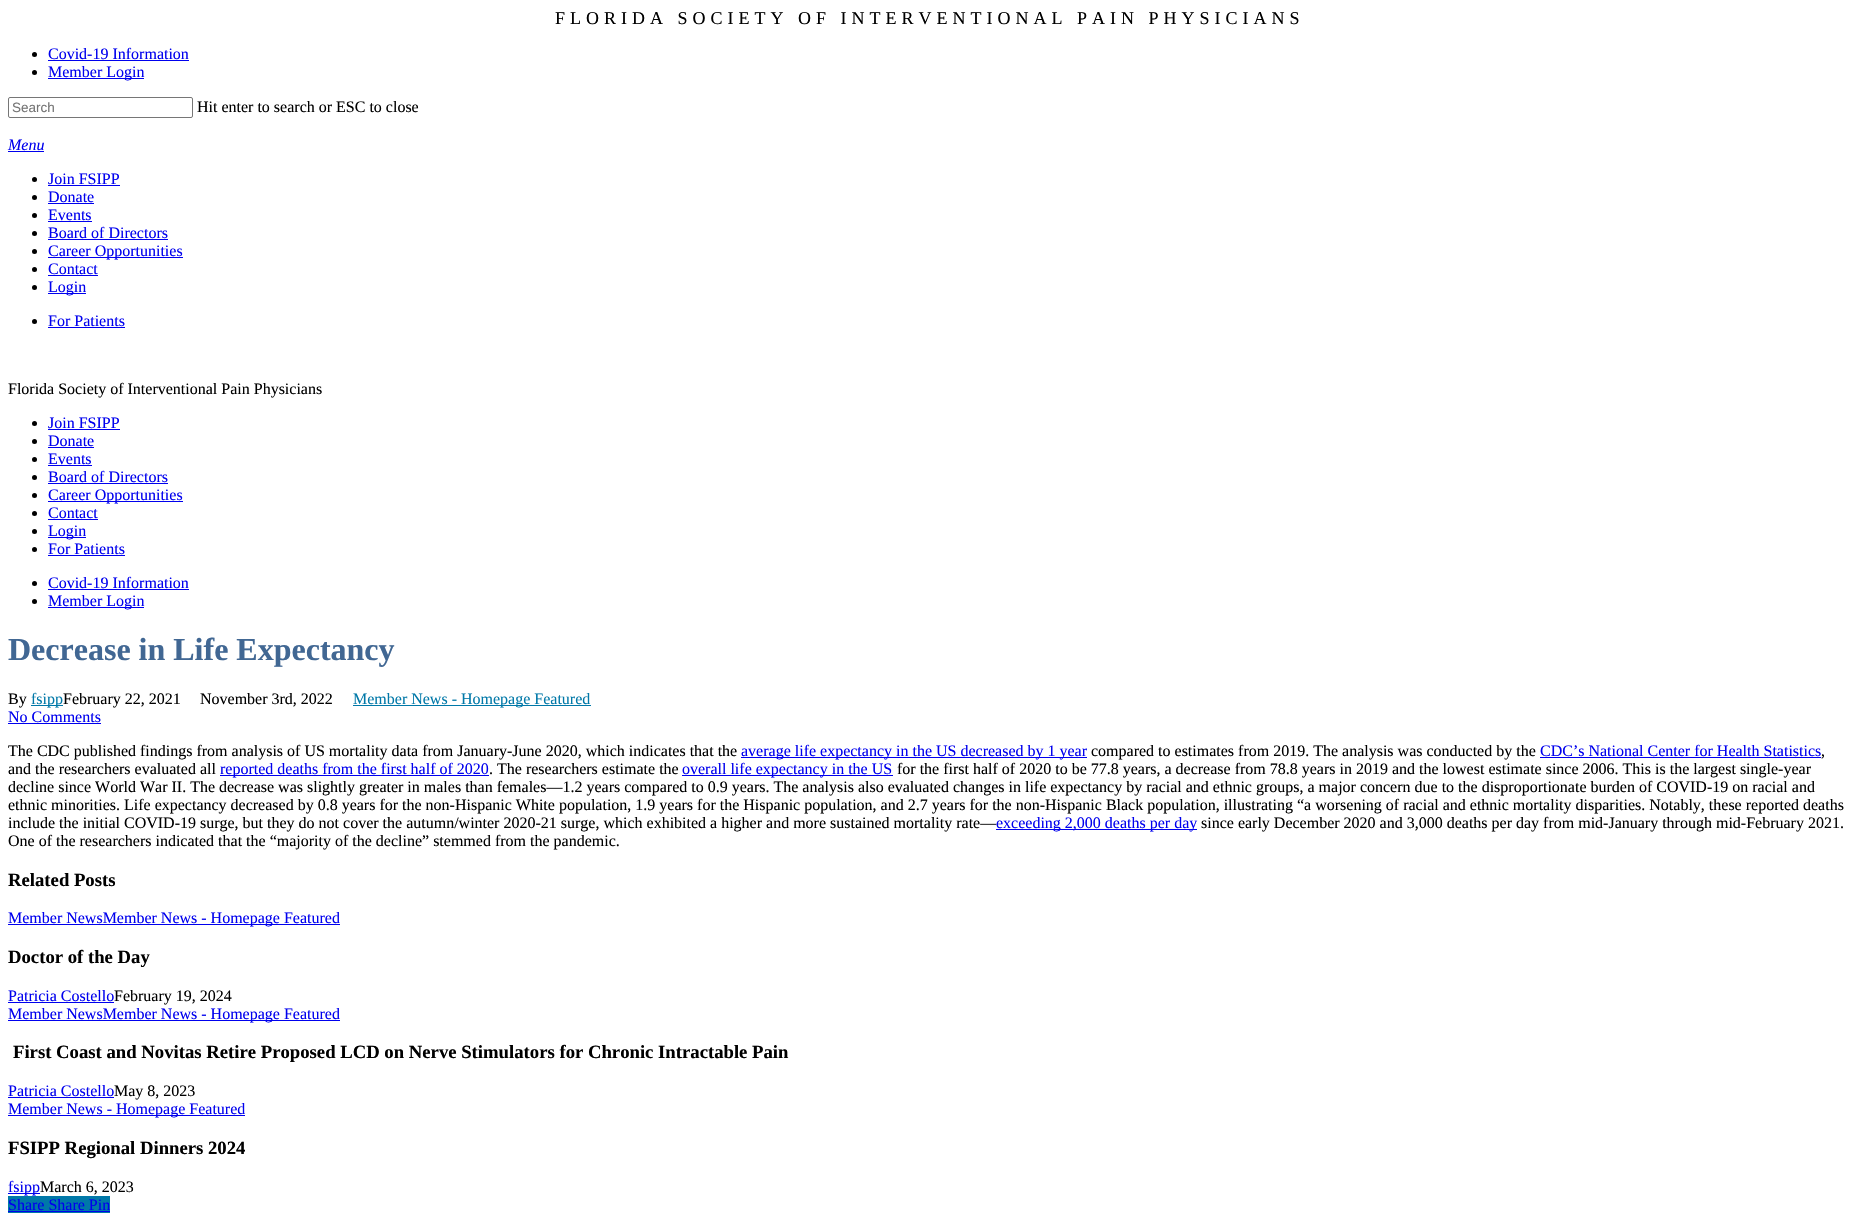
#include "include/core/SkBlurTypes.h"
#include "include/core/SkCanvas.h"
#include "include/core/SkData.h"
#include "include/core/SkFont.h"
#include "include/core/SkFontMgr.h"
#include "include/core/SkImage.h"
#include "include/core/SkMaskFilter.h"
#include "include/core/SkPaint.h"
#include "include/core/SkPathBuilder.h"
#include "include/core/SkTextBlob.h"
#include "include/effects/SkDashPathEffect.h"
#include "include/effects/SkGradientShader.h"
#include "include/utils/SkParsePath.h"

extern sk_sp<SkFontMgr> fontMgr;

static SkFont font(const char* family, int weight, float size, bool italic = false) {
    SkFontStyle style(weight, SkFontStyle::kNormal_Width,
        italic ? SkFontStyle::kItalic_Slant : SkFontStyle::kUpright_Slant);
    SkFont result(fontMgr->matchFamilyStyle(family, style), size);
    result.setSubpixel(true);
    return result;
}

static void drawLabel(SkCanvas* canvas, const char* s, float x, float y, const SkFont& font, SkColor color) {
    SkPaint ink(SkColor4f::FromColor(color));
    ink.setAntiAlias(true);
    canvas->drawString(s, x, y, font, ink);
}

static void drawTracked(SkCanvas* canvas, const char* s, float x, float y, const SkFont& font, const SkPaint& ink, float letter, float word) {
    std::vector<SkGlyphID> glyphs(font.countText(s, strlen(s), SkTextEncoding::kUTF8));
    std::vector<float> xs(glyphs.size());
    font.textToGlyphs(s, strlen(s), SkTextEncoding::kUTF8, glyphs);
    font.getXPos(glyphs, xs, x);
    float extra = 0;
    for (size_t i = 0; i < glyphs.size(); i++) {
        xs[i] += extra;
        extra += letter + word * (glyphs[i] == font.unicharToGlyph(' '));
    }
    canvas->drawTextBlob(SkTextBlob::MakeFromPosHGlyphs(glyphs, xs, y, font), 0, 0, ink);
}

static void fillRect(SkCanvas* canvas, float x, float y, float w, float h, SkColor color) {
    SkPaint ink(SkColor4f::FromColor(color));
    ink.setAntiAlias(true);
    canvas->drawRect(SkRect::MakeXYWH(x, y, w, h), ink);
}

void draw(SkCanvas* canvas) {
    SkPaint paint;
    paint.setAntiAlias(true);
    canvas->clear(0xFFFFFFFF);
    SkFont font1 = font("Liberation Serif", 400, 18);
    paint.setColor(0xFF000000);
    drawTracked(canvas, "FLORIDA SOCIETY OF INTERVENTIONAL PAIN PHYSICIANS", 555, 24, font1, paint, 5, 0);
    canvas->drawCircle(34.5f, 54.5f, 2.5f, paint);
    SkFont font2 = font("Liberation Serif", 400, 16);
    drawLabel(canvas, "Covid-19 Information", 48, 59, font2, 0xFF0000EE);
    fillRect(canvas, 48, 60, 141, 1, 0xFF0000EE);
    canvas->drawCircle(34.5f, 72.5f, 2.5f, paint);
    fillRect(canvas, 48, 78, 96, 1, 0xFF0000EE);
    drawLabel(canvas, "Member Login", 48, 77, font2, 0xFF0000EE);
    paint.setStroke(true);
    paint.setStrokeWidth(1);
    paint.setColor(0xFF767676);
    canvas->drawRoundRect(SkRect::MakeXYWH(8.5f, 97.5f, 184, 20), 1.5f, 1.5f, paint);
    SkFont font3 = font("Liberation Sans", 400, 13.5f);
    drawLabel(canvas, "Search", 12, 112, font3, 0xFF757575);
    drawLabel(canvas, "Hit enter to search or ESC to close", 197, 112, font2, 0xFF000000);
    SkFont font4 = font("Liberation Serif", 400, 16, true);
    drawLabel(canvas, "Menu", 8, 150, font4, 0xFF0000EE);
    fillRect(canvas, 8, 151, 36, 1, 0xFF0000EE);
    paint.setStroke(false);
    paint.setColor(0xFF000000);
    canvas->drawCircle(34.5f, 179.5f, 2.5f, paint);
    drawLabel(canvas, "Join FSIPP", 48, 184, font2, 0xFF0000EE);
    fillRect(canvas, 48, 185, 72, 1, 0xFF0000EE);
    canvas->drawCircle(34.5f, 197.5f, 2.5f, paint);
    drawLabel(canvas, "Donate", 48, 202, font2, 0xFF0000EE);
    fillRect(canvas, 48, 203, 46, 1, 0xFF0000EE);
    canvas->drawCircle(34.5f, 215.5f, 2.5f, paint);
    drawLabel(canvas, "Events", 48, 220, font2, 0xFF0000EE);
    fillRect(canvas, 48, 221, 44, 1, 0xFF0000EE);
    canvas->drawCircle(34.5f, 233.5f, 2.5f, paint);
    drawLabel(canvas, "Board of Directors", 48, 238, font2, 0xFF0000EE);
    fillRect(canvas, 48, 239, 120, 1, 0xFF0000EE);
    canvas->drawCircle(34.5f, 251.5f, 2.5f, paint);
    fillRect(canvas, 48, 257, 135, 1, 0xFF0000EE);
    drawLabel(canvas, "Career Opportunities", 48, 256, font2, 0xFF0000EE);
    canvas->drawCircle(34.5f, 269.5f, 2.5f, paint);
    drawLabel(canvas, "Contact", 48, 274, font2, 0xFF0000EE);
    fillRect(canvas, 48, 275, 50, 1, 0xFF0000EE);
    canvas->drawCircle(34.5f, 287.5f, 2.5f, paint);
    fillRect(canvas, 48, 293, 38, 1, 0xFF0000EE);
    drawLabel(canvas, "Login", 48, 292, font2, 0xFF0000EE);
    canvas->drawCircle(34.5f, 321.5f, 2.5f, paint);
    drawLabel(canvas, "For Patients", 48, 326, font2, 0xFF0000EE);
    fillRect(canvas, 48, 327, 77, 1, 0xFF0000EE);
    drawLabel(canvas, "Florida Society of Interventional Pain Physicians", 8, 394, font2, 0xFF000000);
    canvas->drawCircle(34.5f, 423.5f, 2.5f, paint);
    drawLabel(canvas, "Join FSIPP", 48, 428, font2, 0xFF0000EE);
    fillRect(canvas, 48, 429, 72, 1, 0xFF0000EE);
    canvas->drawCircle(34.5f, 441.5f, 2.5f, paint);
    drawLabel(canvas, "Donate", 48, 446, font2, 0xFF0000EE);
    fillRect(canvas, 48, 447, 46, 1, 0xFF0000EE);
    canvas->drawCircle(34.5f, 459.5f, 2.5f, paint);
    drawLabel(canvas, "Events", 48, 464, font2, 0xFF0000EE);
    fillRect(canvas, 48, 465, 44, 1, 0xFF0000EE);
    canvas->drawCircle(34.5f, 477.5f, 2.5f, paint);
    drawLabel(canvas, "Board of Directors", 48, 482, font2, 0xFF0000EE);
    fillRect(canvas, 48, 483, 120, 1, 0xFF0000EE);
    canvas->drawCircle(34.5f, 495.5f, 2.5f, paint);
    fillRect(canvas, 48, 501, 135, 1, 0xFF0000EE);
    drawLabel(canvas, "Career Opportunities", 48, 500, font2, 0xFF0000EE);
    canvas->drawCircle(34.5f, 513.5f, 2.5f, paint);
    drawLabel(canvas, "Contact", 48, 518, font2, 0xFF0000EE);
    fillRect(canvas, 48, 519, 50, 1, 0xFF0000EE);
    canvas->drawCircle(34.5f, 531.5f, 2.5f, paint);
    fillRect(canvas, 48, 537, 38, 1, 0xFF0000EE);
    drawLabel(canvas, "Login", 48, 536, font2, 0xFF0000EE);
    canvas->drawCircle(34.5f, 549.5f, 2.5f, paint);
    drawLabel(canvas, "For Patients", 48, 554, font2, 0xFF0000EE);
    fillRect(canvas, 48, 555, 77, 1, 0xFF0000EE);
    canvas->drawCircle(34.5f, 583.5f, 2.5f, paint);
    drawLabel(canvas, "Covid-19 Information", 48, 588, font2, 0xFF0000EE);
    fillRect(canvas, 48, 589, 141, 1, 0xFF0000EE);
    canvas->drawCircle(34.5f, 601.5f, 2.5f, paint);
    fillRect(canvas, 48, 607, 96, 1, 0xFF0000EE);
    drawLabel(canvas, "Member Login", 48, 606, font2, 0xFF0000EE);
    SkFont font5 = font("Liberation Serif", 700, 32);
    drawLabel(canvas, "Decrease in Life Expectancy", 8, 660, font5, 0xFF416793);
    drawLabel(canvas, "By", 8, 704, font2, 0xFF000000);
    fillRect(canvas, 31, 705, 32, 1, 0xFF0078A8);
    drawLabel(canvas, "fsipp", 31, 704, font2, 0xFF0078A8);
    drawLabel(canvas, "February 22, 2021", 63, 704, font2, 0xFF000000);
    drawLabel(canvas, "November 3rd, 2022", 200, 704, font2, 0xFF000000);
    fillRect(canvas, 353, 705, 238, 1, 0xFF0078A8);
    drawLabel(canvas, "Member News - Homepage Featured", 353, 704, font2, 0xFF0078A8);
    drawLabel(canvas, "No Comments", 8, 722, font2, 0xFF0000EE);
    fillRect(canvas, 8, 723, 93, 1, 0xFF0000EE);
    drawLabel(canvas, "The CDC published findings from analysis of US mortality data from January-June 2020, which indicates that the", 8, 756, font2, 0xFF000000);
    fillRect(canvas, 741, 757, 346, 1, 0xFF0000EE);
    drawLabel(canvas, "average life expectancy in the US decreased by 1 year", 741, 756, font2, 0xFF0000EE);
    drawLabel(canvas, "compared to estimates from 2019. The analysis was conducted by the", 1091, 756, font2, 0xFF000000);
    drawLabel(canvas, "CDC’s National Center for Health Statistics", 1540, 756, font2, 0xFF0000EE);
    fillRect(canvas, 1540, 757, 281, 1, 0xFF0000EE);
    drawLabel(canvas, ",", 1821, 756, font2, 0xFF000000);
    drawLabel(canvas, "and the researchers evaluated all", 8, 774, font2, 0xFF000000);
    fillRect(canvas, 220, 775, 269, 1, 0xFF0000EE);
    drawLabel(canvas, "reported deaths from the first half of 2020", 220, 774, font2, 0xFF0000EE);
    drawLabel(canvas, ". The researchers estimate the", 489, 774, font2, 0xFF000000);
    fillRect(canvas, 682, 775, 211, 1, 0xFF0000EE);
    drawLabel(canvas, "overall life expectancy in the US", 682, 774, font2, 0xFF0000EE);
    drawLabel(canvas, "for the first half of 2020 to be 77.8 years, a decrease from 78.8 years in 2019 and the lowest estimate since 2006. This is the largest single-year", 897, 774, font2, 0xFF000000);
    drawLabel(canvas, "decline since World War II. The decrease was slightly greater in males than females—1.2 years compared to 0.9 years. The analysis also evaluated changes in life expectancy by racial and ethnic groups, a major concern due to the disproportionate burden of COVID-19 on racial and", 8, 792, font2, 0xFF000000);
    drawLabel(canvas, "ethnic minorities. Life expectancy decreased by 0.8 years for the non-Hispanic White population, 1.9 years for the Hispanic population, and 2.7 years for the non-Hispanic Black population, illustrating “a worsening of racial and ethnic mortality disparities. Notably, these reported deaths", 8, 810, font2, 0xFF000000);
    drawLabel(canvas, "include the initial COVID-19 surge, but they do not cover the autumn/winter 2020-21 surge, which exhibited a higher and more sustained mortality rate—", 8, 828, font2, 0xFF000000);
    fillRect(canvas, 996, 829, 201, 1, 0xFF0000EE);
    drawLabel(canvas, "exceeding 2,000 deaths per day", 996, 828, font2, 0xFF0000EE);
    drawLabel(canvas, "since early December 2020 and 3,000 deaths per day from mid-January through mid-February 2021.", 1201, 828, font2, 0xFF000000);
    drawLabel(canvas, "One of the researchers indicated that the “majority of the decline” stemmed from the pandemic.", 8, 846, font2, 0xFF000000);
    SkFont font6 = font("Liberation Serif", 700, 18.7f);
    drawLabel(canvas, "Related Posts", 8, 886, font6, 0xFF000000);
    fillRect(canvas, 8, 924, 332, 1, 0xFF0000EE);
    drawLabel(canvas, "Member NewsMember News - Homepage Featured", 8, 923, font2, 0xFF0000EE);
    drawLabel(canvas, "Doctor of the Day", 8, 963, font6, 0xFF000000);
    drawLabel(canvas, "Patricia Costello", 8, 1001, font2, 0xFF0000EE);
    fillRect(canvas, 8, 1002, 106, 1, 0xFF0000EE);
    drawLabel(canvas, "February 19, 2024", 114, 1001, font2, 0xFF000000);
    fillRect(canvas, 8, 1020, 332, 1, 0xFF0000EE);
    drawLabel(canvas, "Member NewsMember News - Homepage Featured", 8, 1019, font2, 0xFF0000EE);
    drawLabel(canvas, "First Coast and Novitas Retire Proposed LCD on Nerve Stimulators for Chronic Intractable Pain", 13, 1058, font6, 0xFF000000);
    drawLabel(canvas, "Patricia Costello", 8, 1096, font2, 0xFF0000EE);
    fillRect(canvas, 8, 1097, 106, 1, 0xFF0000EE);
    drawLabel(canvas, "May 8, 2023", 114, 1096, font2, 0xFF000000);
    fillRect(canvas, 8, 1115, 237, 1, 0xFF0000EE);
    drawLabel(canvas, "Member News - Homepage Featured", 8, 1114, font2, 0xFF0000EE);
    drawLabel(canvas, "FSIPP Regional Dinners 2024", 8, 1154, font6, 0xFF000000);
    fillRect(canvas, 8, 1193, 32, 1, 0xFF0000EE);
    drawLabel(canvas, "fsipp", 8, 1192, font2, 0xFF0000EE);
    drawLabel(canvas, "March 6, 2023", 40, 1192, font2, 0xFF000000);
    fillRect(canvas, 8, 1196, 102, 17, 0xFF0078A8);
    drawLabel(canvas, "Share Share Pin", 8, 1210, font2, 0xFF0000EE);
    fillRect(canvas, 8, 1211, 102, 1, 0xFF0000EE);
}
